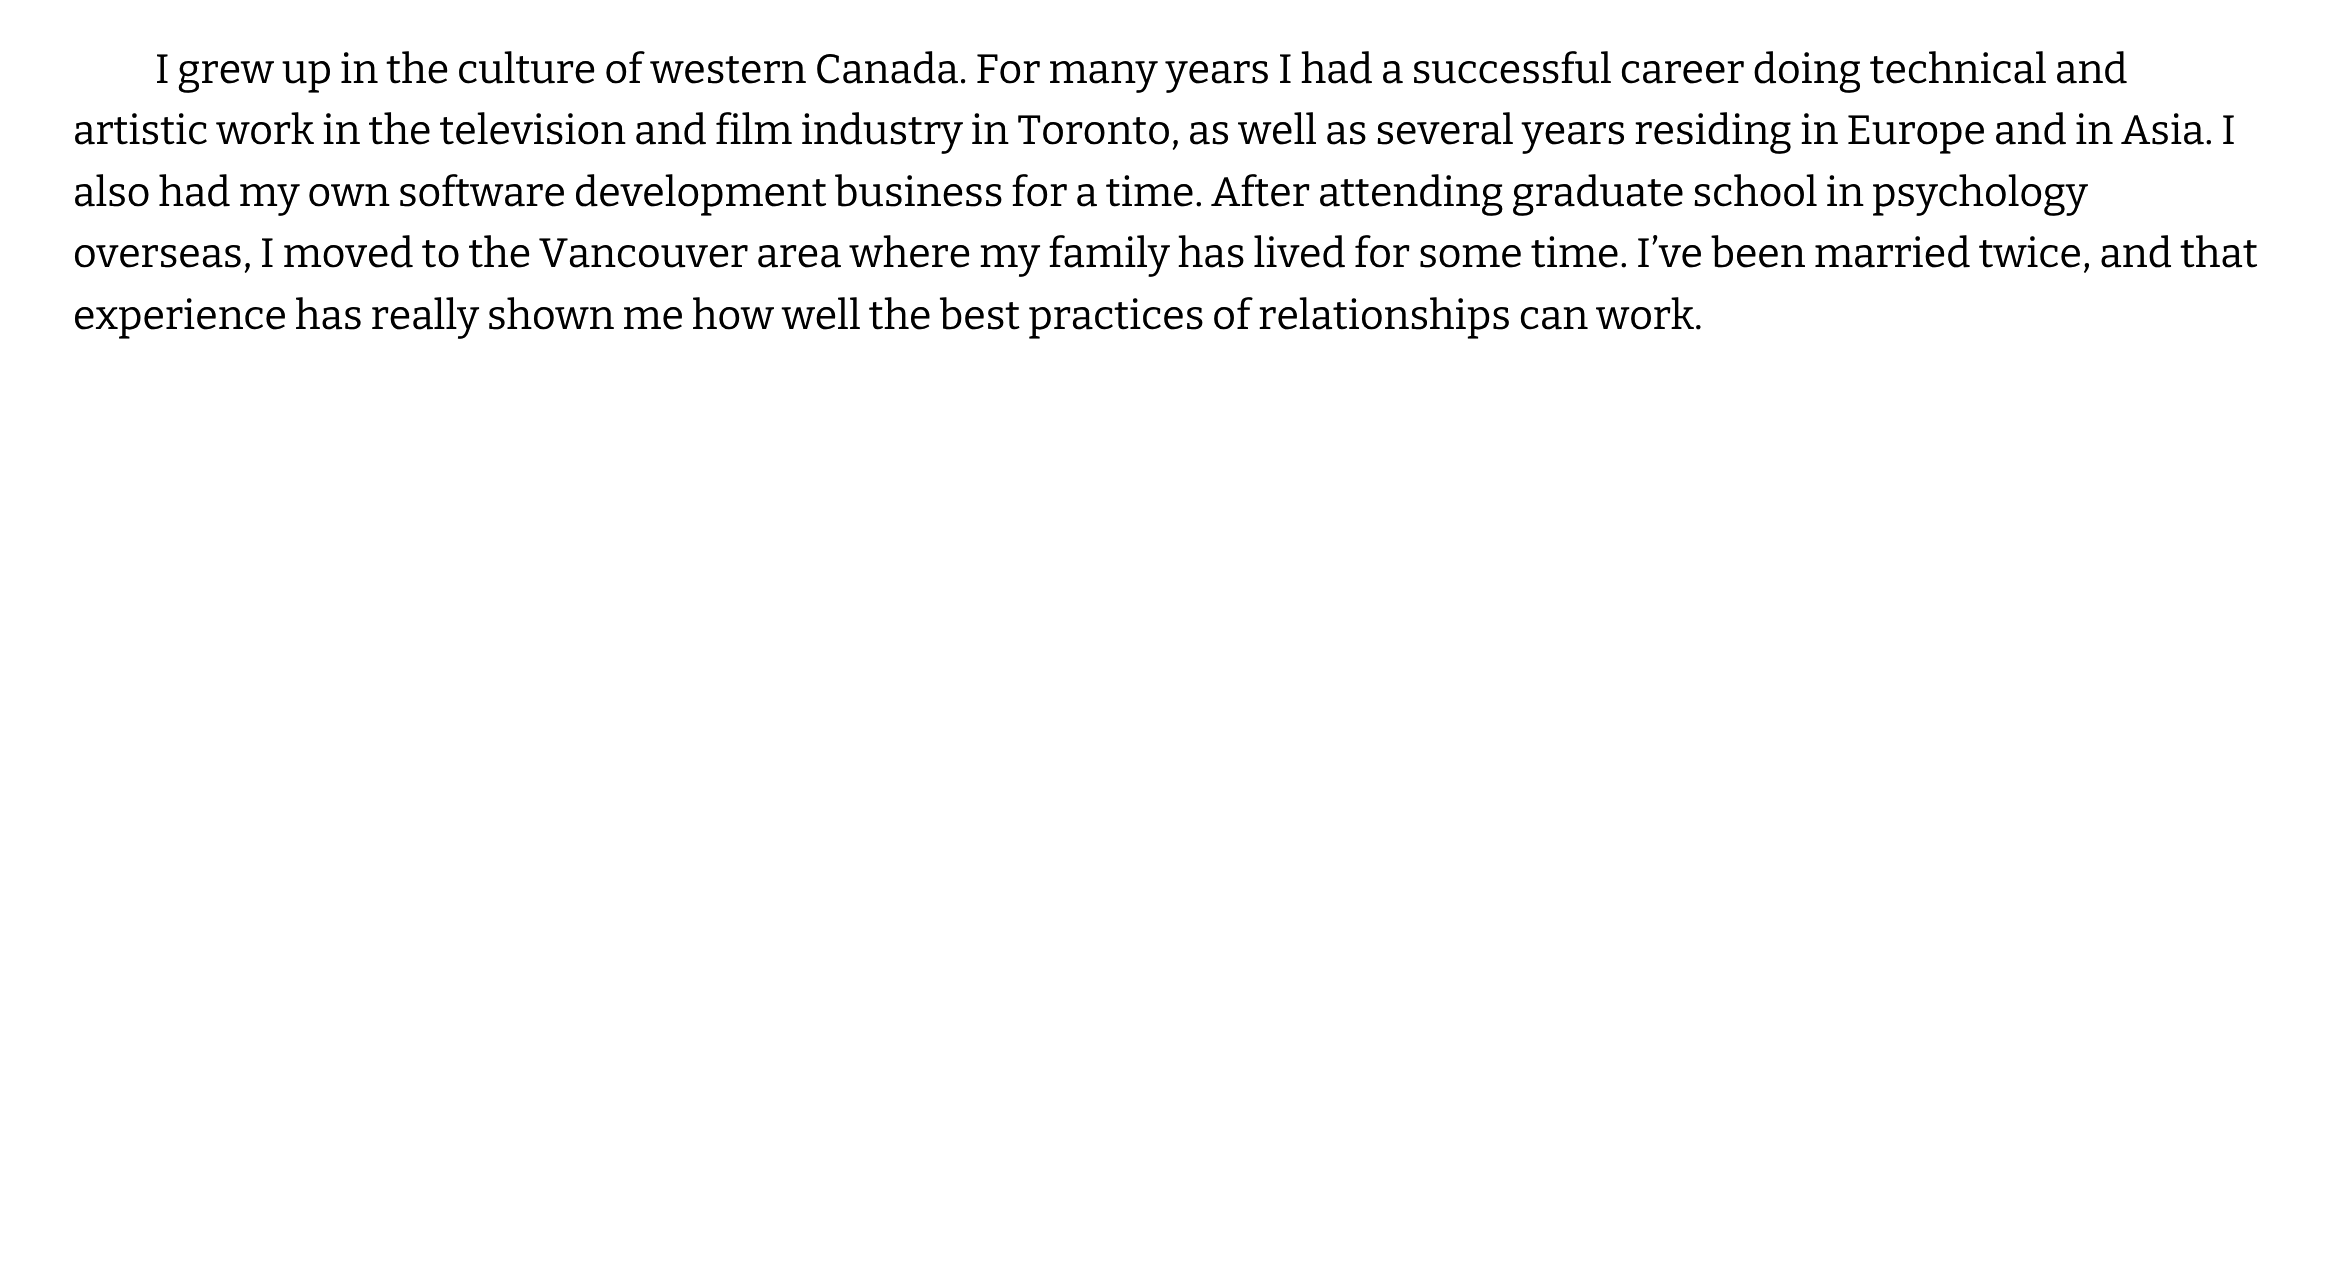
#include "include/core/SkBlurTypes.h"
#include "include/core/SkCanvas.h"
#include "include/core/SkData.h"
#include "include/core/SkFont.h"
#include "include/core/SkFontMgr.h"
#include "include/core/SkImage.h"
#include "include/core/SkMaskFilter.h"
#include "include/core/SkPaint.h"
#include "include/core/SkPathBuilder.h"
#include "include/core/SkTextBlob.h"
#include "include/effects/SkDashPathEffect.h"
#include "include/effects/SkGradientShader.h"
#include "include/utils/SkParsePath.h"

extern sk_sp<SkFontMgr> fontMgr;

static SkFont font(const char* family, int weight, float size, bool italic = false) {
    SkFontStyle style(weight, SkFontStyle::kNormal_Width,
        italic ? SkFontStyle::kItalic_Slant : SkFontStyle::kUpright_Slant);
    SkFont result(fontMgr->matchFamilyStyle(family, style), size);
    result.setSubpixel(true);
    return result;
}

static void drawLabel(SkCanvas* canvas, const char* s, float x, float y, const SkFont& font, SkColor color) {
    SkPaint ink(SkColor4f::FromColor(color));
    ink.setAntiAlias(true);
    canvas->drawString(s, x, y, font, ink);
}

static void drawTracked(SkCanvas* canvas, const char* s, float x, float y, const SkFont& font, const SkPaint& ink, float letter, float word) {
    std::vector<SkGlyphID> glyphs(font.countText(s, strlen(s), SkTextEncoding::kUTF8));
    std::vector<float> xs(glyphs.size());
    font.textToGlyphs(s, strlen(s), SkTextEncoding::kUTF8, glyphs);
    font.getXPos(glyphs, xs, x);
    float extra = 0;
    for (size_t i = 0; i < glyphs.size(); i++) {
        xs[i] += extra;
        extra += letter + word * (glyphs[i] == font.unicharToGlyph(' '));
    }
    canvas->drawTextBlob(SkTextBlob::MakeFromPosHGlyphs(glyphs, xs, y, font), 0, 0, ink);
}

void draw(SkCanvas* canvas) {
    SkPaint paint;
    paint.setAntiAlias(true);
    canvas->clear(0xFFFFFFFF);
    SkFont font1 = font("Bitter", 400, 40.97f);
    drawLabel(canvas, "I grew up in the culture of western Canada. For many years I had a successful career doing technical and", 155, 83, font1, 0xFF000000);
    drawLabel(canvas, "artistic work in the television and film industry in Toronto, as well as several years residing in Europe and in Asia. I", 73, 144, font1, 0xFF000000);
    paint.setColor(0xFF000000);
    drawTracked(canvas, "also had my own software development business for a time. After attending graduate school in psychology", 73, 206, font1, paint, 0, -0.1f);
    drawLabel(canvas, "overseas, I moved to the Vancouver area where my family has lived for some time. I’ve been married twice, and that", 73, 267, font1, 0xFF000000);
    drawTracked(canvas, "experience has really shown me how well the best practices of relationships can work.", 73, 329, font1, paint, 0, -0.1f);
}
